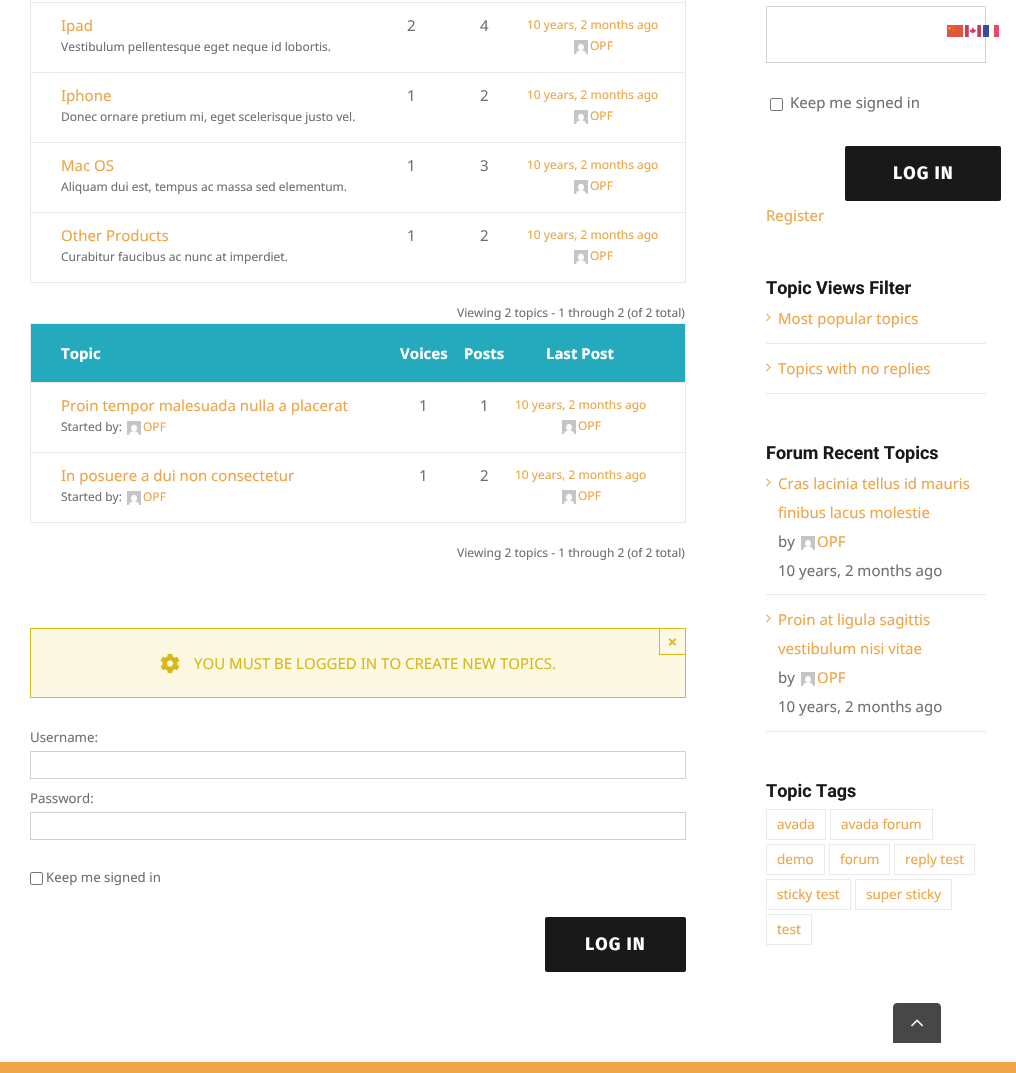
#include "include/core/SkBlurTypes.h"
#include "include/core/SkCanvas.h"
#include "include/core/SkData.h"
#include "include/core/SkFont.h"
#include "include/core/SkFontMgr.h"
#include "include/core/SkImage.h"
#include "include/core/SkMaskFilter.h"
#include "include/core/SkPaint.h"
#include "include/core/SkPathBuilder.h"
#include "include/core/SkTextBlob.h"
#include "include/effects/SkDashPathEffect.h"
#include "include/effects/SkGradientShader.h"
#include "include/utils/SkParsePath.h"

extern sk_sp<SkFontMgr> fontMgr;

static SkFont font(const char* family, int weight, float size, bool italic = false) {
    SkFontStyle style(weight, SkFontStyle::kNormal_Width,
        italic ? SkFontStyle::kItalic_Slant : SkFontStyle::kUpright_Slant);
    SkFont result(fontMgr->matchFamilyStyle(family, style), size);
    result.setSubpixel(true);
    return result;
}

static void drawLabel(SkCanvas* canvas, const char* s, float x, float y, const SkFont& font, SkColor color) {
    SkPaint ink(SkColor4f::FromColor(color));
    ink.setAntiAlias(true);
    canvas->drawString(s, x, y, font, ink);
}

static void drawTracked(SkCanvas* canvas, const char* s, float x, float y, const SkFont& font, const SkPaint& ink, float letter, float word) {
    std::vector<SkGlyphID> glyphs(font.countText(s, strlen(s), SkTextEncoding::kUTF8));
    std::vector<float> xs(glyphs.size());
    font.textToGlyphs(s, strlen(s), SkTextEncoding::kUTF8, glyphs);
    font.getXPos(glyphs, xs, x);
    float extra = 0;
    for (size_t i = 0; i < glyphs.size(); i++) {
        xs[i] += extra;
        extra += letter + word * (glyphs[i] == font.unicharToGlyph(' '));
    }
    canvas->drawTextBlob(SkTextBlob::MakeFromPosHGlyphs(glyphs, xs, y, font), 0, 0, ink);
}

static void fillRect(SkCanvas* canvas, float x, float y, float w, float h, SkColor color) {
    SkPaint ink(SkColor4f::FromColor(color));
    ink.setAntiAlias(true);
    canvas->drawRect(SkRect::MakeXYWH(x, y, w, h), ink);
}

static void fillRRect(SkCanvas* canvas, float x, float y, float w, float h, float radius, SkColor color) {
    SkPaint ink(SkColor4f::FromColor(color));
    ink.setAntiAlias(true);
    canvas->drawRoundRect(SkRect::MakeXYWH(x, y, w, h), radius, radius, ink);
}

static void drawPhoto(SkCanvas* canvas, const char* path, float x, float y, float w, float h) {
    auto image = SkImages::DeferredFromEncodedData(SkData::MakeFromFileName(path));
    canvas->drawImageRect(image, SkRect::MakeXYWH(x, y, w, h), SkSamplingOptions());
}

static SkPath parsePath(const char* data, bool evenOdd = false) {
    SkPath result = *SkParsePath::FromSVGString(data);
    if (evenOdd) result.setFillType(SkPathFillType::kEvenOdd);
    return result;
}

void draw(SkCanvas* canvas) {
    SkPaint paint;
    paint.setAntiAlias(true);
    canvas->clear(0xFFFFFFFF);
    paint.setStroke(true);
    paint.setStrokeWidth(1);
    paint.setColor(0xFFEAEAEA);
    canvas->drawRect(SkRect::MakeXYWH(30.5f, -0.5f, 655, 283), paint);
    fillRect(canvas, 31, 2, 654, 1, 0xFFEAEAEA);
    SkFont font1 = font("Noto Sans", 400, 15);
    drawLabel(canvas, "Ipad", 61, 31, font1, 0xFFEDA547);
    SkFont font2 = font("Noto Sans", 400, 12);
    drawLabel(canvas, "Vestibulum pellentesque eget neque id lobortis.", 61, 51, font2, 0xFF707070);
    drawLabel(canvas, "2", 407, 31, font1, 0xFF707070);
    drawLabel(canvas, "4", 480, 31, font1, 0xFF707070);
    drawLabel(canvas, "10 years, 2 months ago", 527, 29, font2, 0xFFEDA547);
    drawPhoto(canvas, "assets/img1.png", 574, 40, 14, 14);
    drawLabel(canvas, "OPF", 590, 50, font2, 0xFFEDA547);
    fillRect(canvas, 31, 72, 654, 1, 0xFFEAEAEA);
    drawLabel(canvas, "Iphone", 61, 101, font1, 0xFFEDA547);
    drawLabel(canvas, "Donec ornare pretium mi, eget scelerisque justo vel.", 61, 121, font2, 0xFF707070);
    drawLabel(canvas, "1", 407, 101, font1, 0xFF707070);
    drawLabel(canvas, "2", 480, 101, font1, 0xFF707070);
    drawLabel(canvas, "10 years, 2 months ago", 527, 99, font2, 0xFFEDA547);
    drawPhoto(canvas, "assets/img1.png", 574, 110, 14, 14);
    drawLabel(canvas, "OPF", 590, 120, font2, 0xFFEDA547);
    fillRect(canvas, 31, 142, 654, 1, 0xFFEAEAEA);
    drawLabel(canvas, "Mac OS", 61, 171, font1, 0xFFEDA547);
    drawLabel(canvas, "Aliquam dui est, tempus ac massa sed elementum.", 61, 191, font2, 0xFF707070);
    drawLabel(canvas, "1", 407, 171, font1, 0xFF707070);
    drawLabel(canvas, "3", 480, 171, font1, 0xFF707070);
    drawLabel(canvas, "10 years, 2 months ago", 527, 169, font2, 0xFFEDA547);
    drawPhoto(canvas, "assets/img1.png", 574, 180, 14, 14);
    drawLabel(canvas, "OPF", 590, 190, font2, 0xFFEDA547);
    fillRect(canvas, 31, 212, 654, 1, 0xFFEAEAEA);
    drawLabel(canvas, "Other Products", 61, 241, font1, 0xFFEDA547);
    drawLabel(canvas, "Curabitur faucibus ac nunc at imperdiet.", 61, 261, font2, 0xFF707070);
    drawLabel(canvas, "1", 407, 241, font1, 0xFF707070);
    drawLabel(canvas, "2", 480, 241, font1, 0xFF707070);
    drawLabel(canvas, "10 years, 2 months ago", 527, 239, font2, 0xFFEDA547);
    drawPhoto(canvas, "assets/img1.png", 574, 250, 14, 14);
    drawLabel(canvas, "OPF", 590, 260, font2, 0xFFEDA547);
    drawLabel(canvas, "Viewing 2 topics - 1 through 2 (of 2 total)", 457, 317, font2, 0xFF707070);
    canvas->drawRect(SkRect::MakeXYWH(30.5f, 323.5f, 655, 199), paint);
    fillRect(canvas, 31, 324, 654, 58, 0xFF25A9BD);
    canvas->save();
    canvas->clipRect(SkRect::MakeXYWH(61, 344, 604, 18));
    SkFont font3 = font("Noto Sans", 700, 15);
    drawLabel(canvas, "Topic", 61, 359, font3, 0xFFFFFFFF);
    canvas->restore();
    drawLabel(canvas, "Voices", 400, 359, font3, 0xFFFFFFFF);
    drawLabel(canvas, "Posts", 464, 359, font3, 0xFFFFFFFF);
    drawLabel(canvas, "Last Post", 546, 359, font3, 0xFFFFFFFF);
    fillRect(canvas, 31, 382, 654, 1, 0xFFEAEAEA);
    drawLabel(canvas, "Proin tempor malesuada nulla a placerat", 61, 411, font1, 0xFFEDA547);
    drawLabel(canvas, "Started by:", 61, 431, font2, 0xFF707070);
    drawPhoto(canvas, "assets/img1.png", 127, 421, 14, 14);
    drawLabel(canvas, "OPF", 143, 431, font2, 0xFFEDA547);
    drawLabel(canvas, "1", 419, 411, font1, 0xFF707070);
    drawLabel(canvas, "1", 480, 411, font1, 0xFF707070);
    drawLabel(canvas, "10 years, 2 months ago", 515, 409, font2, 0xFFEDA547);
    drawPhoto(canvas, "assets/img1.png", 562, 420, 14, 14);
    drawLabel(canvas, "OPF", 578, 430, font2, 0xFFEDA547);
    fillRect(canvas, 31, 452, 654, 1, 0xFFEAEAEA);
    drawLabel(canvas, "In posuere a dui non consectetur", 61, 481, font1, 0xFFEDA547);
    drawLabel(canvas, "Started by:", 61, 501, font2, 0xFF707070);
    drawPhoto(canvas, "assets/img1.png", 127, 491, 14, 14);
    drawLabel(canvas, "OPF", 143, 501, font2, 0xFFEDA547);
    drawLabel(canvas, "1", 419, 481, font1, 0xFF707070);
    drawLabel(canvas, "2", 480, 481, font1, 0xFF707070);
    drawLabel(canvas, "10 years, 2 months ago", 515, 479, font2, 0xFFEDA547);
    drawPhoto(canvas, "assets/img1.png", 562, 490, 14, 14);
    drawLabel(canvas, "OPF", 578, 500, font2, 0xFFEDA547);
    drawLabel(canvas, "Viewing 2 topics - 1 through 2 (of 2 total)", 457, 557, font2, 0xFF707070);
    paint.setStroke(false);
    paint.setColor(0xFFFCF8E3);
    canvas->drawRect(SkRect::MakeXYWH(30.5f, 628.5f, 655, 69), paint);
    paint.setStroke(true);
    paint.setColor(0xFFD9B917);
    canvas->drawRect(SkRect::MakeXYWH(30.5f, 628.5f, 655, 69), paint);
    canvas->drawRect(SkRect::MakeXYWH(659.5f, 628.5f, 26, 26), paint);
    SkFont font4 = font("Liberation Sans", 700, 15);
    drawLabel(canvas, "×", 668, 647, font4, 0xFFD9B917);
    drawPhoto(canvas, "assets/img2.png", 160, 653, 20, 21);
    drawLabel(canvas, "YOU MUST BE LOGGED IN TO CREATE NEW TOPICS.", 194, 669, font1, 0xFFD9B917);
    SkFont font5 = font("Noto Sans", 400, 13.25f);
    drawLabel(canvas, "Username:", 30, 742, font5, 0xFF707070);
    paint.setColor(0xFFD2D2D2);
    canvas->drawRect(SkRect::MakeXYWH(30.5f, 751.5f, 655, 27), paint);
    drawLabel(canvas, "Password:", 30, 803, font5, 0xFF707070);
    canvas->drawRect(SkRect::MakeXYWH(30.5f, 812.5f, 655, 27), paint);
    paint.setColor(0xFF767676);
    canvas->drawRoundRect(SkRect::MakeXYWH(30.5f, 872.5f, 12, 12), 1.5f, 1.5f, paint);
    drawLabel(canvas, "Keep me signed in", 46, 882, font5, 0xFF707070);
    fillRRect(canvas, 545, 917, 141, 55, 2, 0xFF191919);
    SkFont font6 = font("Fira Sans", 700, 18);
    paint.setStroke(false);
    paint.setColor(0xFFFFFFFF);
    drawTracked(canvas, "LOG IN", 585, 950, font6, paint, 1, 0);
    paint.setStroke(true);
    paint.setColor(0xFFD2D2D2);
    canvas->drawRect(SkRect::MakeXYWH(766.5f, 6.5f, 219, 56), paint);
    paint.setColor(0xFF767676);
    canvas->drawRoundRect(SkRect::MakeXYWH(770.5f, 98.5f, 12, 12), 1.5f, 1.5f, paint);
    drawLabel(canvas, "Keep me signed in", 790, 108, font1, 0xFF707070);
    fillRRect(canvas, 845, 146, 156, 55, 2, 0xFF191919);
    paint.setStroke(false);
    paint.setColor(0xFFFFFFFF);
    drawTracked(canvas, "LOG IN", 893, 179, font6, paint, 1, 0);
    drawLabel(canvas, "Register", 766, 221, font1, 0xFFEDA547);
    SkFont font7 = font("Roboto", 700, 18);
    drawLabel(canvas, "Topic Views Filter", 766, 294, font7, 0xFF191919);
    fillRect(canvas, 766, 343, 220, 1, 0xFFEAEAEA);
    drawPhoto(canvas, "assets/img3.png", 766, 313, 5, 9);
    drawLabel(canvas, "Most popular topics", 778, 324, font1, 0xFFEDA547);
    fillRect(canvas, 766, 393, 220, 1, 0xFFEAEAEA);
    drawPhoto(canvas, "assets/img3.png", 766, 363, 5, 9);
    drawLabel(canvas, "Topics with no replies", 778, 374, font1, 0xFFEDA547);
    drawLabel(canvas, "Forum Recent Topics", 766, 459, font7, 0xFF191919);
    fillRect(canvas, 766, 594, 220, 1, 0xFFEAEAEA);
    drawPhoto(canvas, "assets/img3.png", 766, 478, 5, 9);
    drawLabel(canvas, "Cras lacinia tellus id mauris", 778, 489, font1, 0xFFEDA547);
    drawLabel(canvas, "finibus lacus molestie", 778, 518, font1, 0xFFEDA547);
    drawLabel(canvas, "by", 778, 547, font1, 0xFF707070);
    drawPhoto(canvas, "assets/img1.png", 801, 536, 14, 14);
    drawLabel(canvas, "OPF", 817, 547, font1, 0xFFEDA547);
    drawLabel(canvas, "10 years, 2 months ago", 778, 576, font1, 0xFF707070);
    fillRect(canvas, 766, 731, 220, 1, 0xFFEAEAEA);
    drawPhoto(canvas, "assets/img3.png", 766, 614, 5, 9);
    drawLabel(canvas, "Proin at ligula sagittis", 778, 625, font1, 0xFFEDA547);
    drawLabel(canvas, "vestibulum nisi vitae", 778, 654, font1, 0xFFEDA547);
    drawLabel(canvas, "by", 778, 683, font1, 0xFF707070);
    drawPhoto(canvas, "assets/img1.png", 801, 672, 14, 14);
    drawLabel(canvas, "OPF", 817, 683, font1, 0xFFEDA547);
    drawLabel(canvas, "10 years, 2 months ago", 778, 712, font1, 0xFF707070);
    drawLabel(canvas, "Topic Tags", 766, 797, font7, 0xFF191919);
    paint.setStroke(true);
    paint.setColor(0xFFEAEAEA);
    canvas->drawRect(SkRect::MakeXYWH(766.5f, 809.5f, 59, 30), paint);
    SkFont font8 = font("Noto Sans", 400, 13.5f);
    drawLabel(canvas, "avada", 777, 829, font8, 0xFFEDA547);
    canvas->drawRect(SkRect::MakeXYWH(830.5f, 809.5f, 102, 30), paint);
    drawLabel(canvas, "avada forum", 841, 829, font8, 0xFFEDA547);
    canvas->drawRect(SkRect::MakeXYWH(766.5f, 844.5f, 58, 30), paint);
    drawLabel(canvas, "demo", 777, 864, font8, 0xFFEDA547);
    canvas->drawRect(SkRect::MakeXYWH(829.5f, 844.5f, 60, 30), paint);
    drawLabel(canvas, "forum", 840, 864, font8, 0xFFEDA547);
    canvas->drawRect(SkRect::MakeXYWH(894.5f, 844.5f, 80, 30), paint);
    drawLabel(canvas, "reply test", 905, 864, font8, 0xFFEDA547);
    canvas->drawRect(SkRect::MakeXYWH(766.5f, 879.5f, 84, 30), paint);
    drawLabel(canvas, "sticky test", 777, 899, font8, 0xFFEDA547);
    canvas->drawRect(SkRect::MakeXYWH(855.5f, 879.5f, 96, 30), paint);
    drawLabel(canvas, "super sticky", 866, 899, font8, 0xFFEDA547);
    canvas->drawRect(SkRect::MakeXYWH(766.5f, 914.5f, 45, 30), paint);
    drawLabel(canvas, "test", 777, 934, font8, 0xFFEDA547);
    fillRect(canvas, 0, 1062, 1016, 11, 0xFFEDA547);
    drawPhoto(canvas, "assets/img4.png", 947, 25, 16, 12);
    drawPhoto(canvas, "assets/img5.png", 965, 25, 16, 12);
    fillRect(canvas, 985, 25, 1, 12, 0xCCFFFFFF);
    fillRect(canvas, 983, 25, 6, 12, 0xCC00267F);
    fillRect(canvas, 994, 25, 5, 12, 0xFFF54659);
    paint.setStroke(false);
    paint.setColor(0xFF474747);
    canvas->drawPath(parsePath("M897 1003H937C939 1003 941 1005 941 1007V1043H893V1007C893 1005 895 1003 897 1003Z"), paint);
    drawPhoto(canvas, "assets/img6.png", 911, 1019, 13, 8);
}
